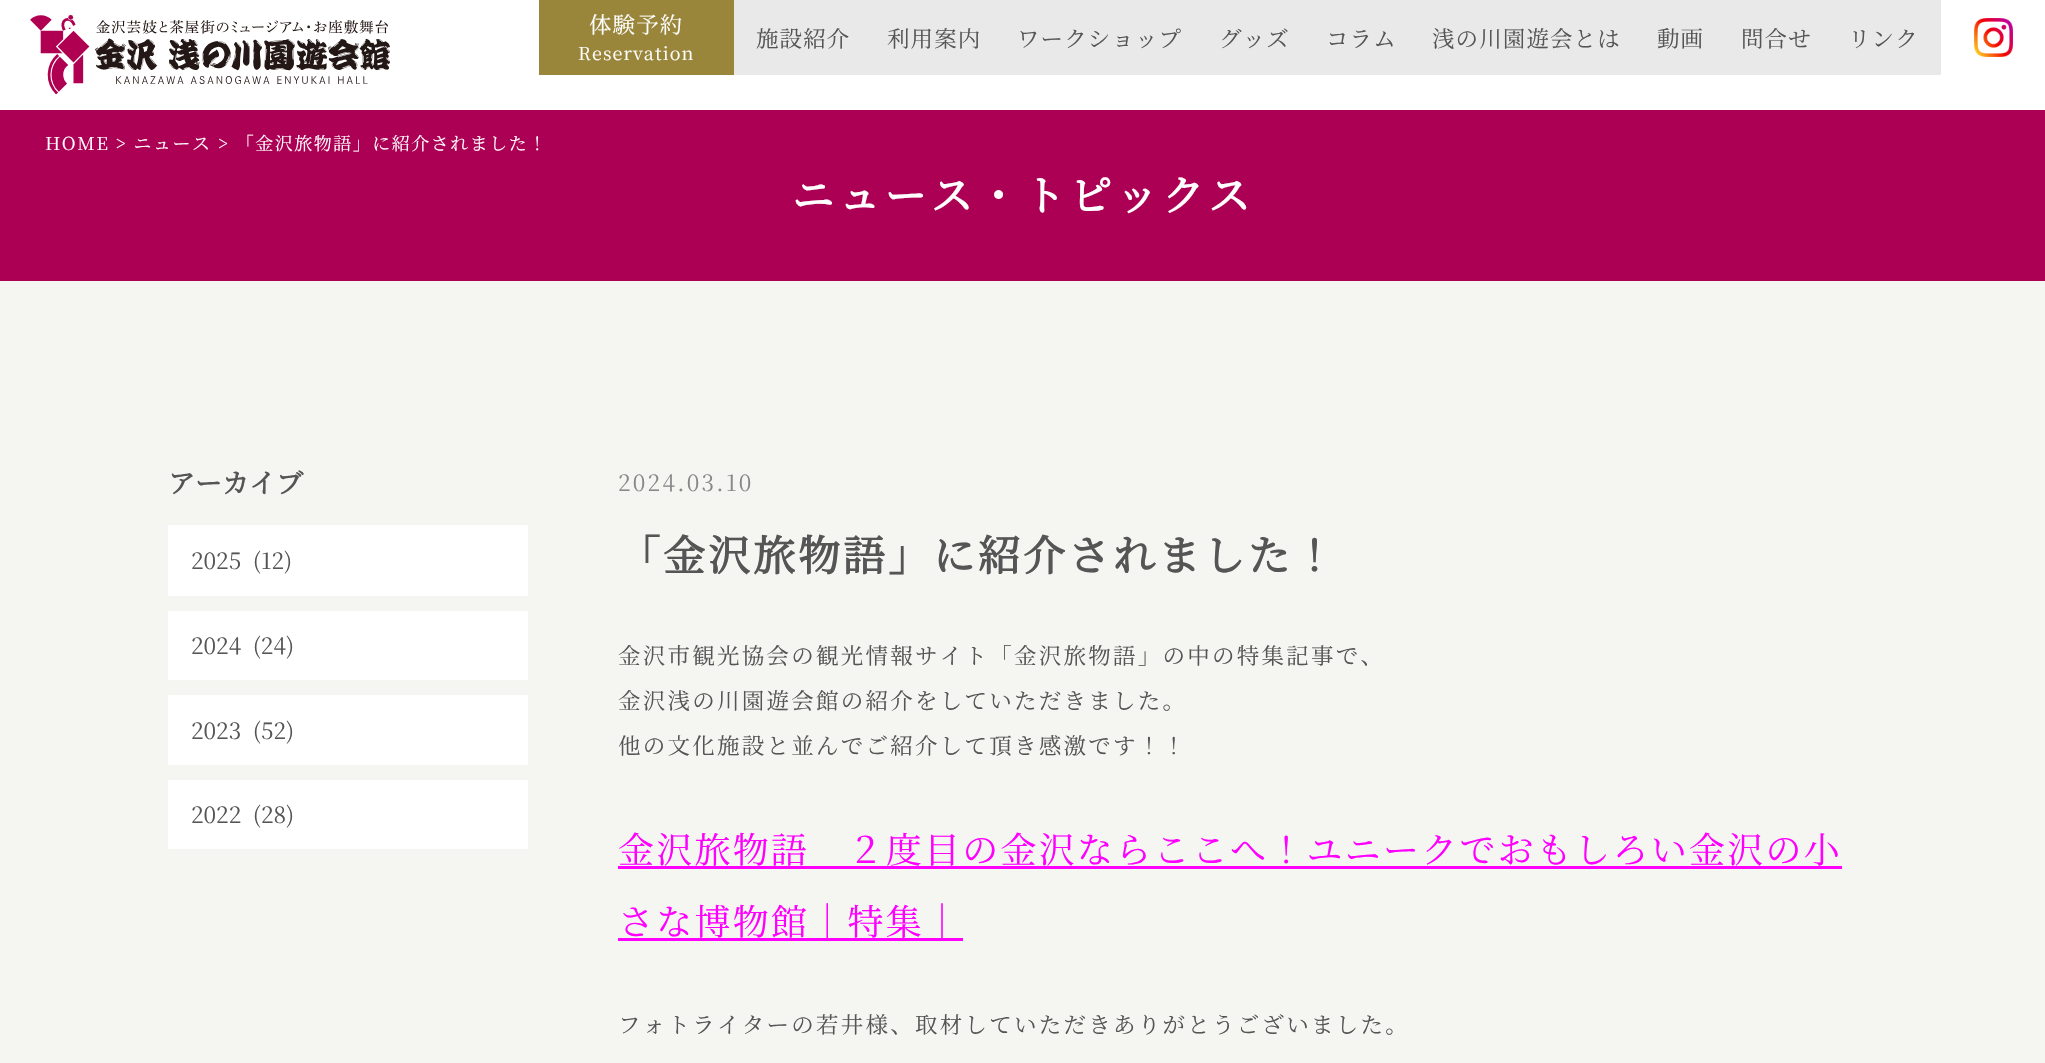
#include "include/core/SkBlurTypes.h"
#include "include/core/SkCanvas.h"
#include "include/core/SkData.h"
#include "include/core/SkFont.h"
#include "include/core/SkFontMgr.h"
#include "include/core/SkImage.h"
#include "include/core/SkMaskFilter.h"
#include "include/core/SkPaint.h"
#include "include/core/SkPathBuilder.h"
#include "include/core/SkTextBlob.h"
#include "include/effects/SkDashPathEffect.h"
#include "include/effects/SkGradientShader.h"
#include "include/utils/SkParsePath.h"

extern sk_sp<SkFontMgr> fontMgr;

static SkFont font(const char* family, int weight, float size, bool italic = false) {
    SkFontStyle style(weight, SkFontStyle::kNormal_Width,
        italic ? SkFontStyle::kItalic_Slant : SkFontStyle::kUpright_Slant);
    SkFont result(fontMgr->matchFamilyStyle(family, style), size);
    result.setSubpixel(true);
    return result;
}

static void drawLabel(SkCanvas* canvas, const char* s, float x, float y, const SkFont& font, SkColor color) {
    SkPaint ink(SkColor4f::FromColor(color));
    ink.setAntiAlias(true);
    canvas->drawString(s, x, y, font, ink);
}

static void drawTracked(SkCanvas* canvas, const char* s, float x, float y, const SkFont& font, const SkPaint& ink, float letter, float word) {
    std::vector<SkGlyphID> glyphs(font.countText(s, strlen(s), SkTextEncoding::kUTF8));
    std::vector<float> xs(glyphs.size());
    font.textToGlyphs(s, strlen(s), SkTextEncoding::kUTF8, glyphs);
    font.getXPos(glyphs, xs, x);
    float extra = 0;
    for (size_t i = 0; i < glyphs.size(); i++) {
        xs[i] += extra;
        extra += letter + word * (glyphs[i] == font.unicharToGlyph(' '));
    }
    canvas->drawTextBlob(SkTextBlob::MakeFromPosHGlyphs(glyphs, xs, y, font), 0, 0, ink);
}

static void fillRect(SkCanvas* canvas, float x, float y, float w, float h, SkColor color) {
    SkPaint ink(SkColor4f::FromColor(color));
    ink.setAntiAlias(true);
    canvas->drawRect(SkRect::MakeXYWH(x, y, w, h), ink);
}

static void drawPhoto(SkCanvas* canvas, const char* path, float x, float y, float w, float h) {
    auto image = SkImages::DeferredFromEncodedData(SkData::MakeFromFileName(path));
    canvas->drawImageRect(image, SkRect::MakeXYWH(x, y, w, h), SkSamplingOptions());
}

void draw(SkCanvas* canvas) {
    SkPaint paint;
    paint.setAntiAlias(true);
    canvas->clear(0xFFF5F5F2);
    fillRect(canvas, 0, 0, 2045, 110, 0xFFFFFFFF);
    drawPhoto(canvas, "assets/img1.png", 30, 15, 360, 80);
    fillRect(canvas, 539, 0, 195, 75, 0xFF99863A);
    SkFont font1 = font("Noto Serif JP", 200, 22.5f);
    paint.setColor(0xFFFFFFFF);
    drawTracked(canvas, "体験予約", 589, 33, font1, paint, 1.1f, 0);
    SkFont font2 = font("Noto Serif JP", 200, 18);
    drawTracked(canvas, "Reservation", 578, 60, font2, paint, 1.1f, 0);
    fillRect(canvas, 734, 0, 1207, 75, 0xFFE9E9E9);
    paint.setColor(0xFF555555);
    drawTracked(canvas, "施設紹介", 756, 47, font1, paint, 1.1f, 0);
    drawTracked(canvas, "利用案内", 887, 47, font1, paint, 1.1f, 0);
    drawTracked(canvas, "ワークショップ", 1017, 47, font1, paint, 1.1f, 0);
    drawTracked(canvas, "グッズ", 1219, 47, font1, paint, 1.1f, 0);
    drawTracked(canvas, "コラム", 1326, 47, font1, paint, 1.1f, 0);
    drawTracked(canvas, "浅の川園遊会とは", 1432, 47, font1, paint, 1.1f, 0);
    drawTracked(canvas, "動画", 1657, 47, font1, paint, 1.1f, 0);
    drawTracked(canvas, "問合せ", 1741, 47, font1, paint, 1.1f, 0);
    drawTracked(canvas, "リンク", 1848, 47, font1, paint, 1.1f, 0);
    drawPhoto(canvas, "assets/img2.png", 1974, 18, 39, 39);
    fillRect(canvas, 0, 110, 2045, 171, 0xFFAC0054);
    paint.setColor(0xFFFFFFFF);
    drawTracked(canvas, "HOME > ニュース > 「金沢旅物語」に紹介されました！", 45, 150, font2, paint, 1.5f, 0);
    SkFont font3 = font("Noto Serif JP", 700, 42);
    drawTracked(canvas, "ニュース・トピックス", 792, 211, font3, paint, 4.25f, 0);
    SkFont font4 = font("Noto Serif JP", 700, 27);
    drawLabel(canvas, "アーカイブ", 168, 493, font4, 0xFF555555);
    fillRect(canvas, 168, 525, 360, 71, 0xFFFFFFFF);
    drawLabel(canvas, "2025  (12)", 191, 569, font1, 0xFF555555);
    fillRect(canvas, 168, 611, 360, 69, 0xFFFFFFFF);
    drawLabel(canvas, "2024  (24)", 191, 654, font1, 0xFF555555);
    fillRect(canvas, 168, 695, 360, 70, 0xFFFFFFFF);
    drawLabel(canvas, "2023  (52)", 191, 739, font1, 0xFF555555);
    fillRect(canvas, 168, 780, 360, 69, 0xFFFFFFFF);
    drawLabel(canvas, "2022  (28)", 191, 823, font1, 0xFF555555);
    paint.setColor(0xFF888888);
    drawTracked(canvas, "2024.03.10", 618, 491, font1, paint, 2.25f, 0);
    paint.setColor(0xFF555555);
    drawTracked(canvas, "「金沢旅物語」に紹介されました！", 618, 571, font3, paint, 3, 0);
    drawTracked(canvas, "金沢市観光協会の観光情報サイト「金沢旅物語」の中の特集記事で、", 618, 664, font1, paint, 2.25f, 0);
    drawTracked(canvas, "金沢浅の川園遊会館の紹介をしていただきました。", 618, 709, font1, paint, 2.25f, 0);
    drawTracked(canvas, "他の文化施設と並んでご紹介して頂き感激です！！", 618, 754, font1, paint, 2.25f, 0);
    SkFont font5 = font("Noto Serif JP", 200, 36);
    paint.setColor(0xFFFF00FF);
    drawTracked(canvas, "金沢旅物語　２度目の金沢ならここへ！ユニークでおもしろい金沢の小", 618, 863, font5, paint, 2.25f, 0);
    fillRect(canvas, 618, 866, 1224, 3, 0xFFFF00FF);
    fillRect(canvas, 618, 938, 345, 3, 0xFFFF00FF);
    drawTracked(canvas, "さな博物館｜特集｜", 618, 935, font5, paint, 2.25f, 0);
    paint.setColor(0xFF555555);
    drawTracked(canvas, "フォトライターの若井様、取材していただきありがとうございました。", 618, 1033, font1, paint, 2.25f, 0);
}
